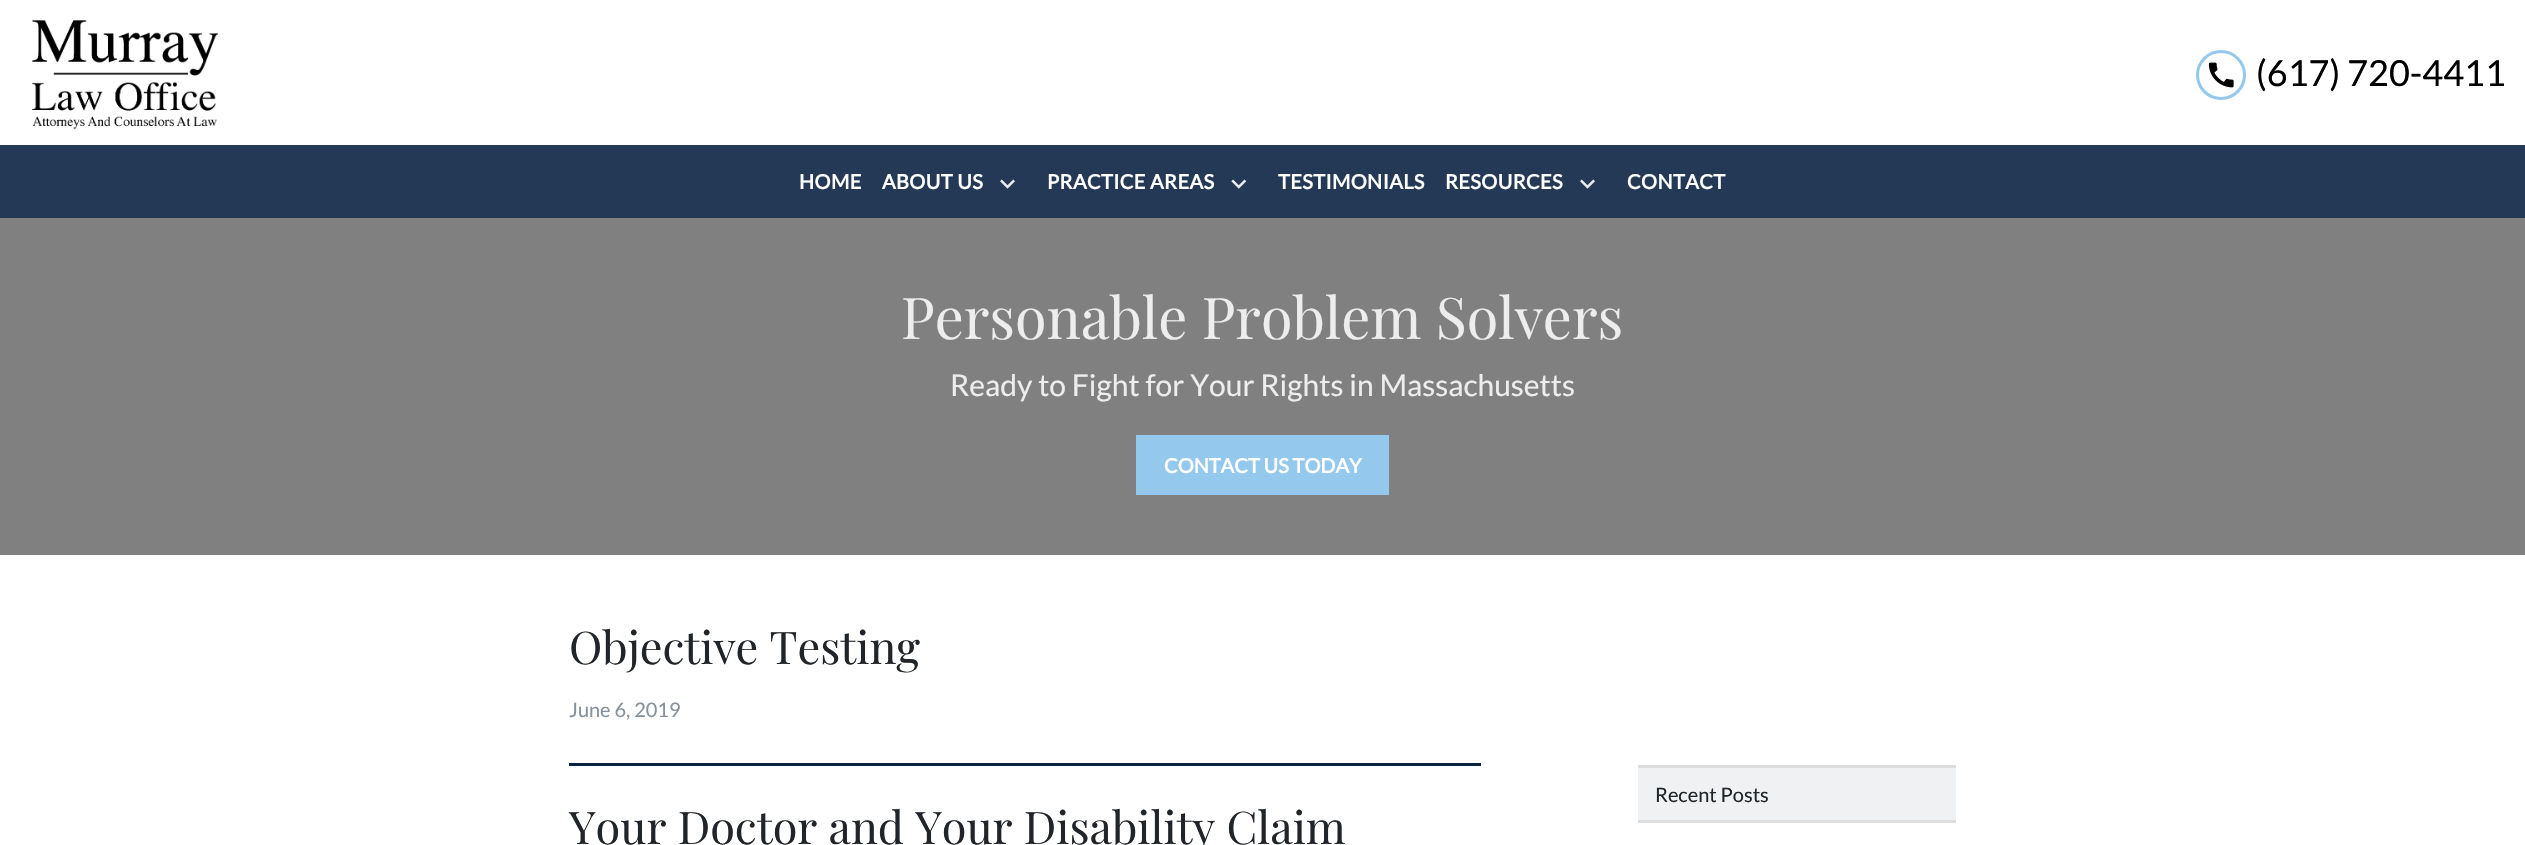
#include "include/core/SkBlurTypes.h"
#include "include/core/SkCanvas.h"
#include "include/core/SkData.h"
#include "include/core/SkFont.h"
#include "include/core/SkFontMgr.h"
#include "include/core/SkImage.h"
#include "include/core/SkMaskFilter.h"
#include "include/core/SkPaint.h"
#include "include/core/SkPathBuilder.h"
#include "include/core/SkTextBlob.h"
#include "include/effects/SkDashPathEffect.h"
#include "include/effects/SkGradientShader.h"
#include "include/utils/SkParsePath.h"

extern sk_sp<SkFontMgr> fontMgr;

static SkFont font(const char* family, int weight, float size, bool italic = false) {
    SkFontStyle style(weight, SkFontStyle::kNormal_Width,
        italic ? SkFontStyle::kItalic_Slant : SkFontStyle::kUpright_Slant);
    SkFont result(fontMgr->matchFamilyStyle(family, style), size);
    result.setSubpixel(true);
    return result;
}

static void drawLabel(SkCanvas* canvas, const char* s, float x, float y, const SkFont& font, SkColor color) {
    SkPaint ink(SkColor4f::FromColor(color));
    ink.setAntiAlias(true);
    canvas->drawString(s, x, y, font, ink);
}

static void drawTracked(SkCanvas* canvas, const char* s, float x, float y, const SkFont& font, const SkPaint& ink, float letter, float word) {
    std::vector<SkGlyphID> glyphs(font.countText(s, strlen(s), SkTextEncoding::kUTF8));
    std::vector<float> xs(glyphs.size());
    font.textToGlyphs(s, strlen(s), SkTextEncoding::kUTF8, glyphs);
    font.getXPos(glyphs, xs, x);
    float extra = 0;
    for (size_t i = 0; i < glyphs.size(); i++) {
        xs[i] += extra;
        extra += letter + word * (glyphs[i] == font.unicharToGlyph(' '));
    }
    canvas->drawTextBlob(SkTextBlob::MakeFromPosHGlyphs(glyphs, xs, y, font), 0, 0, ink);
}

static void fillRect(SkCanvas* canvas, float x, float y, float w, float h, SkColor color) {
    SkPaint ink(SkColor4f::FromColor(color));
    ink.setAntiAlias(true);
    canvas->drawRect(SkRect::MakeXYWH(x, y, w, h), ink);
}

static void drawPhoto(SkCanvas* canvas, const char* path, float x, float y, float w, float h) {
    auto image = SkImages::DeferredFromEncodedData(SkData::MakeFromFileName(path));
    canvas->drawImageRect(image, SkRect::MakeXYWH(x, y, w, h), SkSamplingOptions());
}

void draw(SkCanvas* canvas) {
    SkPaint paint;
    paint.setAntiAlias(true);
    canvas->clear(0xFFFFFFFF);
    drawPhoto(canvas, "assets/img1.png", 32, 20, 186, 110);
    paint.setStroke(true);
    paint.setStrokeWidth(3);
    paint.setColor(0xFF94C9ED);
    canvas->drawCircle(2221, 75, 23.5f, paint);
    drawPhoto(canvas, "assets/img2.png", 2208, 62, 26, 26);
    SkFont font1 = font("Lato", 400, 36);
    drawLabel(canvas, "(617) 720-4411", 2256, 86, font1, 0xFF000000);
    fillRect(canvas, 0, 145, 2525, 73, 0xFF233955);
    SkFont font2 = font("Lato", 700, 20);
    paint.setStroke(false);
    paint.setColor(0xFFFFFFFF);
    drawTracked(canvas, "HOME", 799, 189, font2, paint, 0.4f, 0);
    drawTracked(canvas, "ABOUT US", 882, 189, font2, paint, 0.4f, 0);
    drawPhoto(canvas, "assets/img3.png", 1000, 179, 15, 10);
    drawTracked(canvas, "PRACTICE AREAS", 1047, 189, font2, paint, 0.4f, 0);
    drawPhoto(canvas, "assets/img4.png", 1231, 179, 16, 10);
    drawTracked(canvas, "TESTIMONIALS", 1278, 189, font2, paint, 0.4f, 0);
    drawTracked(canvas, "RESOURCES", 1445, 189, font2, paint, 0.4f, 0);
    drawPhoto(canvas, "assets/img3.png", 1580, 179, 15, 10);
    drawTracked(canvas, "CONTACT", 1627, 189, font2, paint, 0.4f, 0);
    fillRect(canvas, 0, 218, 2525, 337, 0xFF808080);
    SkFont font3 = font("Playfair Display", 400, 57.5f);
    drawLabel(canvas, "Personable Problem Solvers", 901, 339, font3, 0xFFEEEDED);
    SkFont font4 = font("Lato", 400, 30);
    drawLabel(canvas, "Ready to Fight for Your Rights in Massachusetts", 950, 396, font4, 0xFFEEEDED);
    fillRect(canvas, 1136, 435, 253, 60, 0xFF94C9ED);
    drawLabel(canvas, "CONTACT US TODAY", 1164, 473, font2, 0xFFFFFFFF);
    SkFont font5 = font("Playfair Display", 400, 45);
    drawLabel(canvas, "Objective Testing", 569, 664, font5, 0xFF212529);
    fillRect(canvas, 569, 763, 912, 3, 0xFF0B2342);
    SkFont font6 = font("Lato", 400, 20);
    drawLabel(canvas, "June 6, 2019", 569, 717, font6, 0xFF87919B);
    fillRect(canvas, 1638, 768, 318, 52, 0xFFEFF1F2);
    fillRect(canvas, 1638, 765, 318, 3, 0xFFDDDDDD);
    fillRect(canvas, 1638, 820, 318, 3, 0xFFDDDDDD);
    drawLabel(canvas, "Recent Posts", 1655, 802, font6, 0xFF212529);
    drawLabel(canvas, "Your Doctor and Your Disability Claim", 569, 844, font5, 0xFF212529);
}
